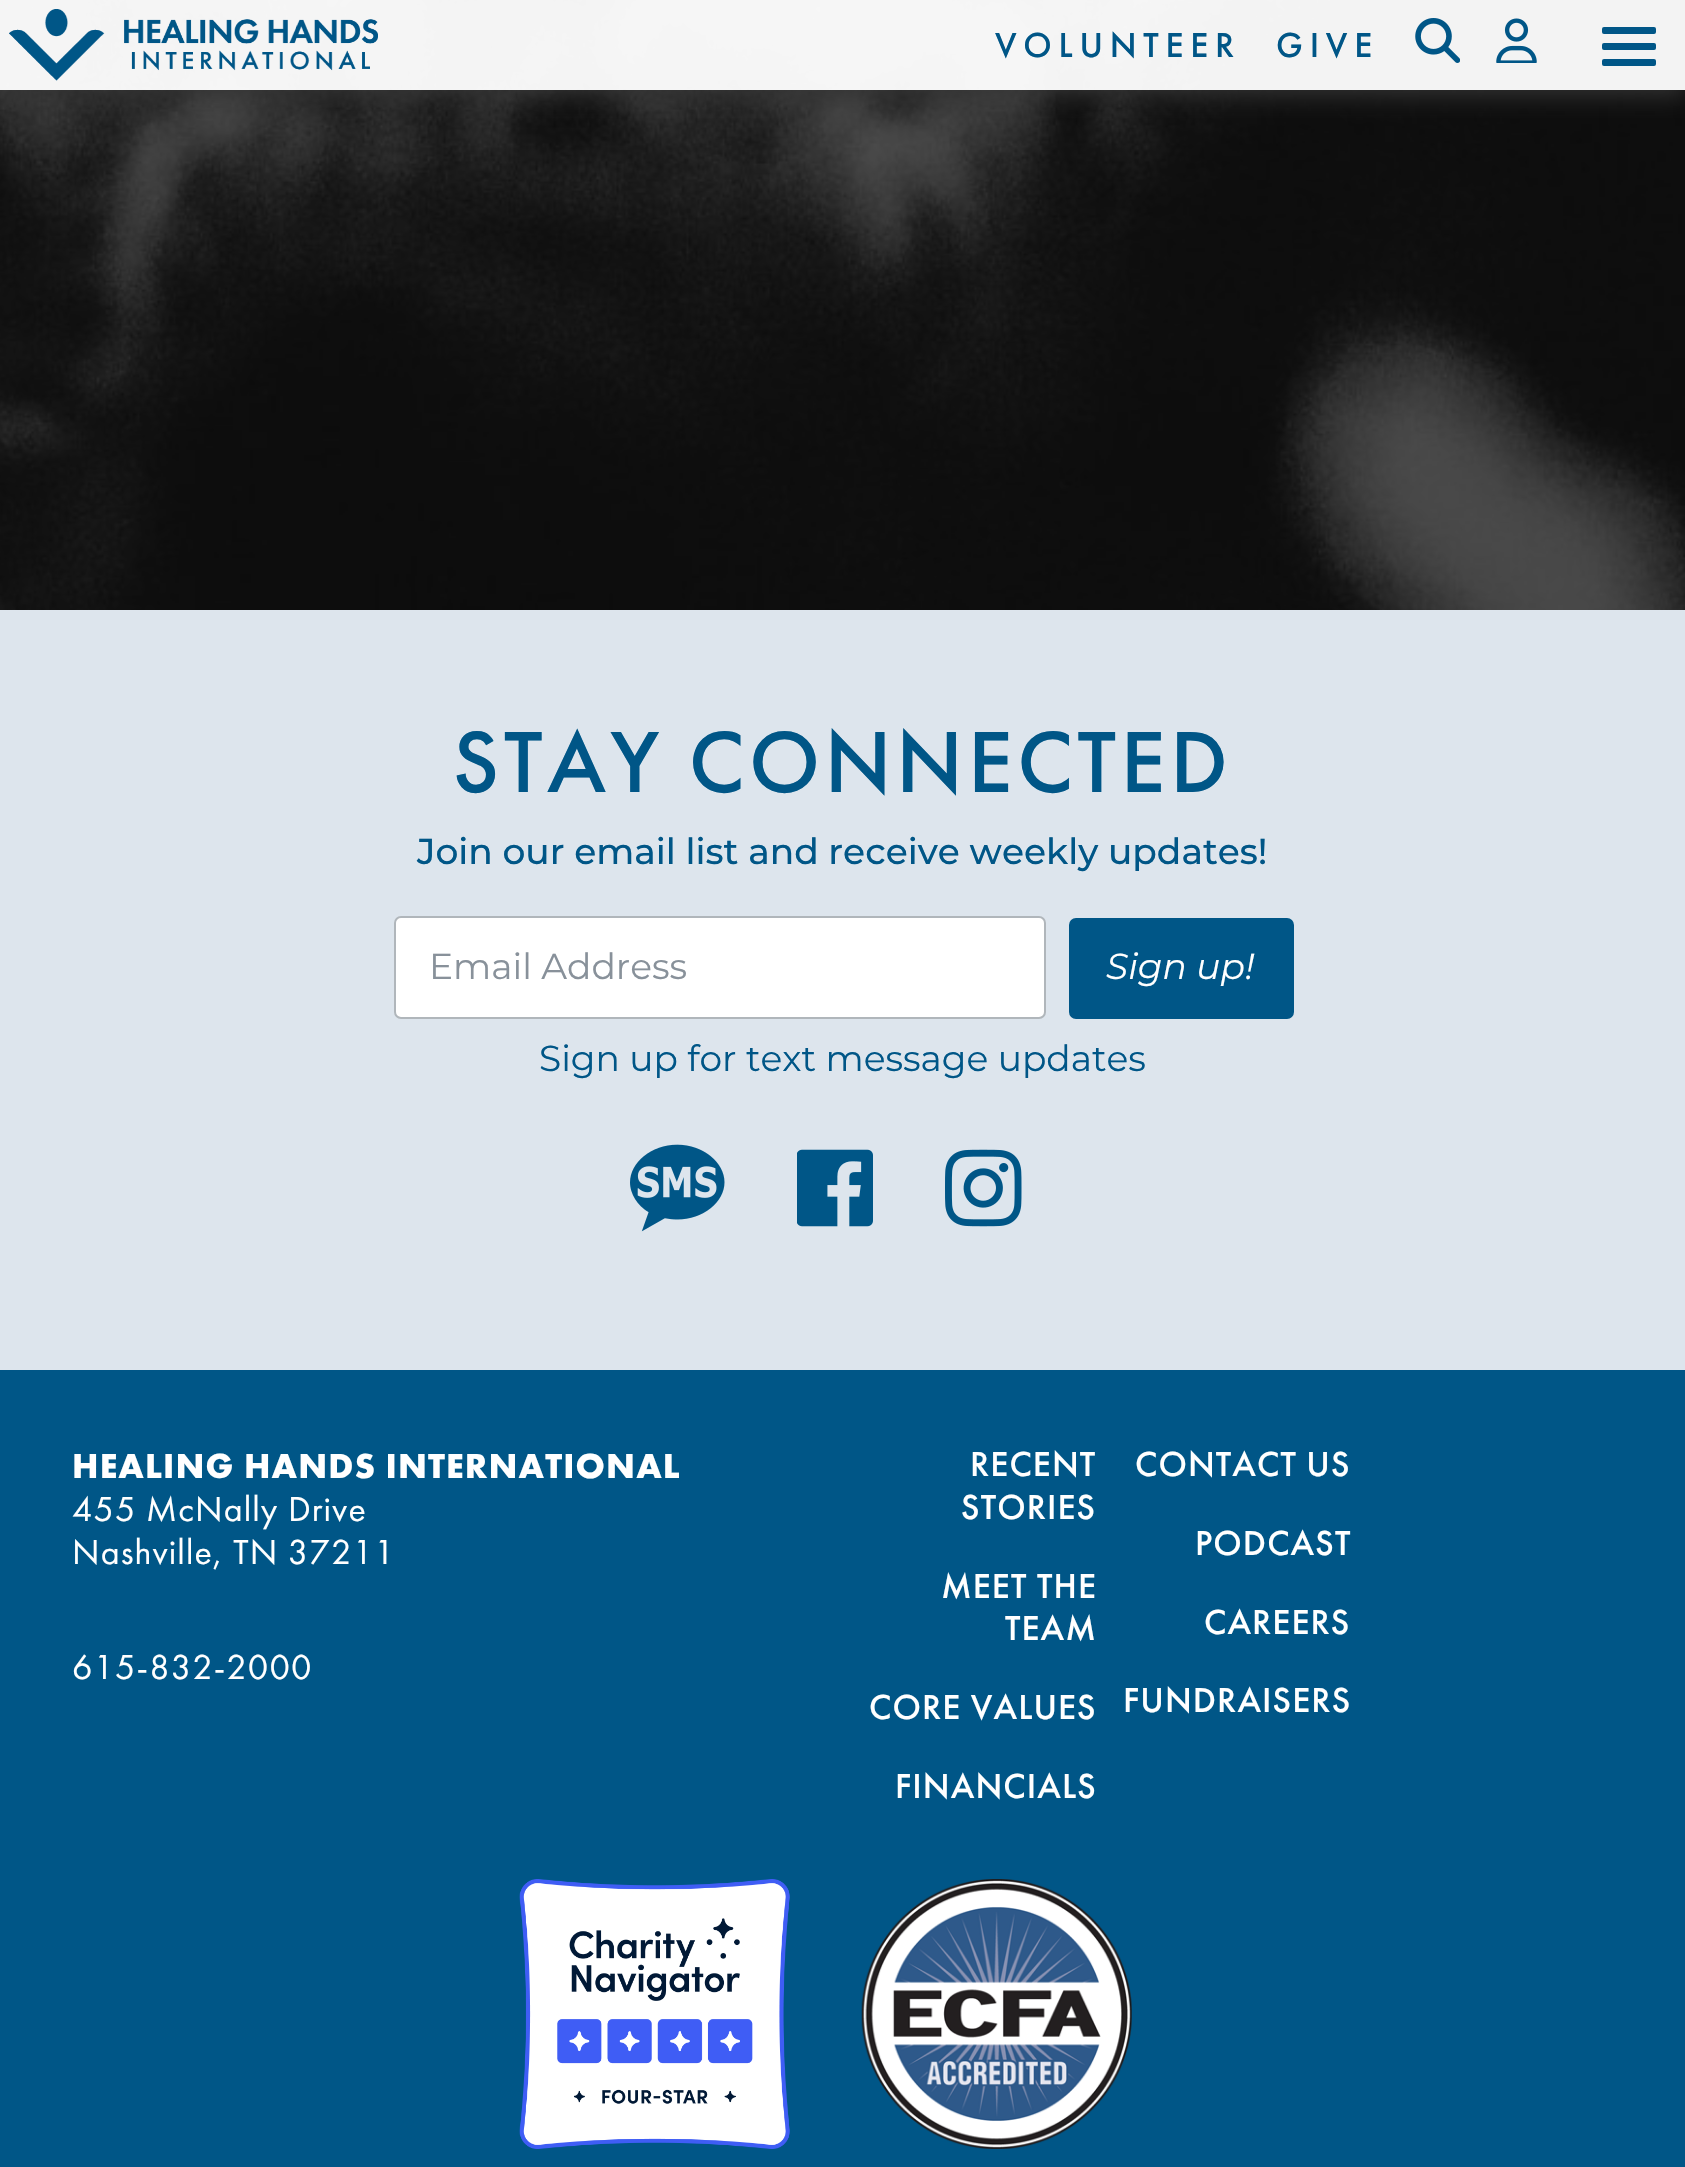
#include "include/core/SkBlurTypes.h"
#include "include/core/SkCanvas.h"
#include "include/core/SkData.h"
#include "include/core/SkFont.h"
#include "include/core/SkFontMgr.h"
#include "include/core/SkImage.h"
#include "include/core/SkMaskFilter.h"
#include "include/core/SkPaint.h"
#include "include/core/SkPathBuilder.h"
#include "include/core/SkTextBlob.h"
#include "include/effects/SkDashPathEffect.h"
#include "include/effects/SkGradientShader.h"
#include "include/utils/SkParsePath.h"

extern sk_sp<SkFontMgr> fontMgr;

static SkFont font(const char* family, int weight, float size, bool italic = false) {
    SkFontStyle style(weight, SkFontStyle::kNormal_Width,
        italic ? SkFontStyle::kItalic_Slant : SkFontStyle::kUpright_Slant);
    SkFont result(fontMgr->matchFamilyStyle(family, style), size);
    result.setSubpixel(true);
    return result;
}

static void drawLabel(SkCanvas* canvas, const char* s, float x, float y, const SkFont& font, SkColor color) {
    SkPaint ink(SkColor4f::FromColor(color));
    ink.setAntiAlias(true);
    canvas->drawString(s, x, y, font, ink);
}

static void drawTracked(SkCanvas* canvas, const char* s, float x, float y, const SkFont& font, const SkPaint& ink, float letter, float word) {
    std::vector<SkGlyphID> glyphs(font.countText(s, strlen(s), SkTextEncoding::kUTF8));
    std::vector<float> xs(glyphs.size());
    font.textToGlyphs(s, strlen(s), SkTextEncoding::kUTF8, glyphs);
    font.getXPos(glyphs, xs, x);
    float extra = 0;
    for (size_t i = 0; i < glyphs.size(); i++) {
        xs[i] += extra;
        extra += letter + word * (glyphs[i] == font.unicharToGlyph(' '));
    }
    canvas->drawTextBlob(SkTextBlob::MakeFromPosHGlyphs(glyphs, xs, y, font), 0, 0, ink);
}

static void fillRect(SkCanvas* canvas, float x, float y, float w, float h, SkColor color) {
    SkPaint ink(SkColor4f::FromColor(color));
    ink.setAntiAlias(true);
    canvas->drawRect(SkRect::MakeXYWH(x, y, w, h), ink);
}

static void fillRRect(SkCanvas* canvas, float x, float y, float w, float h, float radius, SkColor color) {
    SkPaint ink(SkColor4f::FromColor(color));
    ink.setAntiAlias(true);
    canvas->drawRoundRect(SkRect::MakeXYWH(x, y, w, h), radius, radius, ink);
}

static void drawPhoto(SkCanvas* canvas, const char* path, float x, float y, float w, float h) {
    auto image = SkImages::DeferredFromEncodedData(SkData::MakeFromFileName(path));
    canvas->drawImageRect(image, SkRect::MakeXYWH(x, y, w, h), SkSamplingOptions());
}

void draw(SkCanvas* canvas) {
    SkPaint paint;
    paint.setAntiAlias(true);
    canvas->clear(0xFFDDE5ED);
    drawPhoto(canvas, "assets/img1.png", 0, 0, 1685, 610);
    canvas->save();
    canvas->clipRect(SkRect::MakeXYWH(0, 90, 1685, 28));
    paint.setColor(0xFF333333);
    paint.setMaskFilter(SkMaskFilter::MakeBlur(kNormal_SkBlurStyle, 11));
    canvas->drawRect(SkRect::MakeXYWH(0, 5, 1685, 90), paint);
    paint.setMaskFilter(nullptr);
    canvas->restore();
    fillRect(canvas, 0, 0, 1685, 90, 0xF2FFFFFF);
    drawPhoto(canvas, "assets/img2.png", 9, 9, 369, 72);
    SkFont font1 = font("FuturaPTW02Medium", 500, 36);
    paint.setColor(0xFF005687);
    drawTracked(canvas, "VOLUNTEER", 995, 57, font1, paint, 6.75f, 0);
    drawTracked(canvas, "GIVE", 1276, 57, font1, paint, 6.75f, 0);
    drawPhoto(canvas, "assets/img3.png", 1415, 18, 45, 45);
    drawPhoto(canvas, "assets/img4.png", 1496, 18, 41, 45);
    fillRRect(canvas, 1602, 43, 54, 7, 2, 0xFF005687);
    fillRRect(canvas, 1602, 27, 54, 7, 2, 0xFF005687);
    fillRRect(canvas, 1602, 59, 54, 7, 2, 0xFF005687);
    SkFont font2 = font("FuturaPTW02Medium", 500, 90);
    drawTracked(canvas, "STAY CONNECTED", 453, 792, font2, paint, 4.5f, 0);
    SkFont font3 = font("Montserrat", 500, 36);
    drawLabel(canvas, "Join our email list and receive weekly updates!", 417, 864, font3, 0xFF005687);
    paint.setColor(0xFFFFFFFF);
    canvas->drawRoundRect(SkRect::MakeXYWH(395, 917, 650, 101), 6, 6, paint);
    paint.setStroke(true);
    paint.setStrokeWidth(2);
    paint.setColor(0xFFB0B6BB);
    canvas->drawRoundRect(SkRect::MakeXYWH(395, 917, 650, 101), 6, 6, paint);
    SkFont font4 = font("Montserrat", 400, 36);
    drawLabel(canvas, "Email Address", 429, 979, font4, 0xFF88919A);
    paint.setStroke(false);
    paint.setColor(0xFF005687);
    canvas->drawRoundRect(SkRect::MakeXYWH(1070, 919, 223, 99), 6, 6, paint);
    paint.setStroke(true);
    canvas->drawRoundRect(SkRect::MakeXYWH(1070, 919, 223, 99), 6, 6, paint);
    SkFont font5 = font("Montserrat", 400, 36, true);
    drawLabel(canvas, "Sign up!", 1106, 979, font5, 0xFFFFFFFF);
    drawLabel(canvas, "Sign up for text message updates", 539, 1071, font4, 0xFF005687);
    drawPhoto(canvas, "assets/img5.png", 630, 1144, 95, 88);
    drawPhoto(canvas, "assets/img6.png", 797, 1149, 76, 78);
    drawPhoto(canvas, "assets/img7.png", 945, 1149, 77, 78);
    fillRect(canvas, 0, 1370, 1685, 797, 0xFF005687);
    SkFont font6 = font("Futura", 700, 36);
    paint.setStroke(false);
    paint.setColor(0xFFFFFFFF);
    drawTracked(canvas, "HEALING HANDS INTERNATIONAL", 72, 1478, font6, paint, 1.1f, 0);
    SkFont font7 = font("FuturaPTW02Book", 400, 36);
    drawTracked(canvas, "455 McNally Drive", 72, 1521, font7, paint, 1.1f, 0);
    drawTracked(canvas, "Nashville, TN 37211", 72, 1564, font7, paint, 1.1f, 0);
    drawTracked(canvas, "615-832-2000", 72, 1679, font7, paint, 1.1f, 0);
    drawTracked(canvas, "RECENT", 970, 1476, font1, paint, 1.1f, 0);
    drawTracked(canvas, "STORIES", 961, 1519, font1, paint, 1.1f, 0);
    drawTracked(canvas, "MEET THE", 941, 1598, font1, paint, 1.1f, 0);
    drawTracked(canvas, "TEAM", 1005, 1640, font1, paint, 1.1f, 0);
    drawTracked(canvas, "CORE VALUES", 869, 1719, font1, paint, 1.1f, 0);
    drawTracked(canvas, "FINANCIALS", 895, 1798, font1, paint, 1.1f, 0);
    drawTracked(canvas, "CONTACT US", 1135, 1476, font1, paint, 1.1f, 0);
    drawTracked(canvas, "PODCAST", 1195, 1555, font1, paint, 1.1f, 0);
    drawTracked(canvas, "CAREERS", 1204, 1634, font1, paint, 1.1f, 0);
    drawTracked(canvas, "FUNDRAISERS", 1123, 1712, font1, paint, 1.1f, 0);
    drawPhoto(canvas, "assets/img8.png", 519, 1879, 271, 270);
    drawPhoto(canvas, "assets/img9.png", 861, 1879, 271, 270);
}
